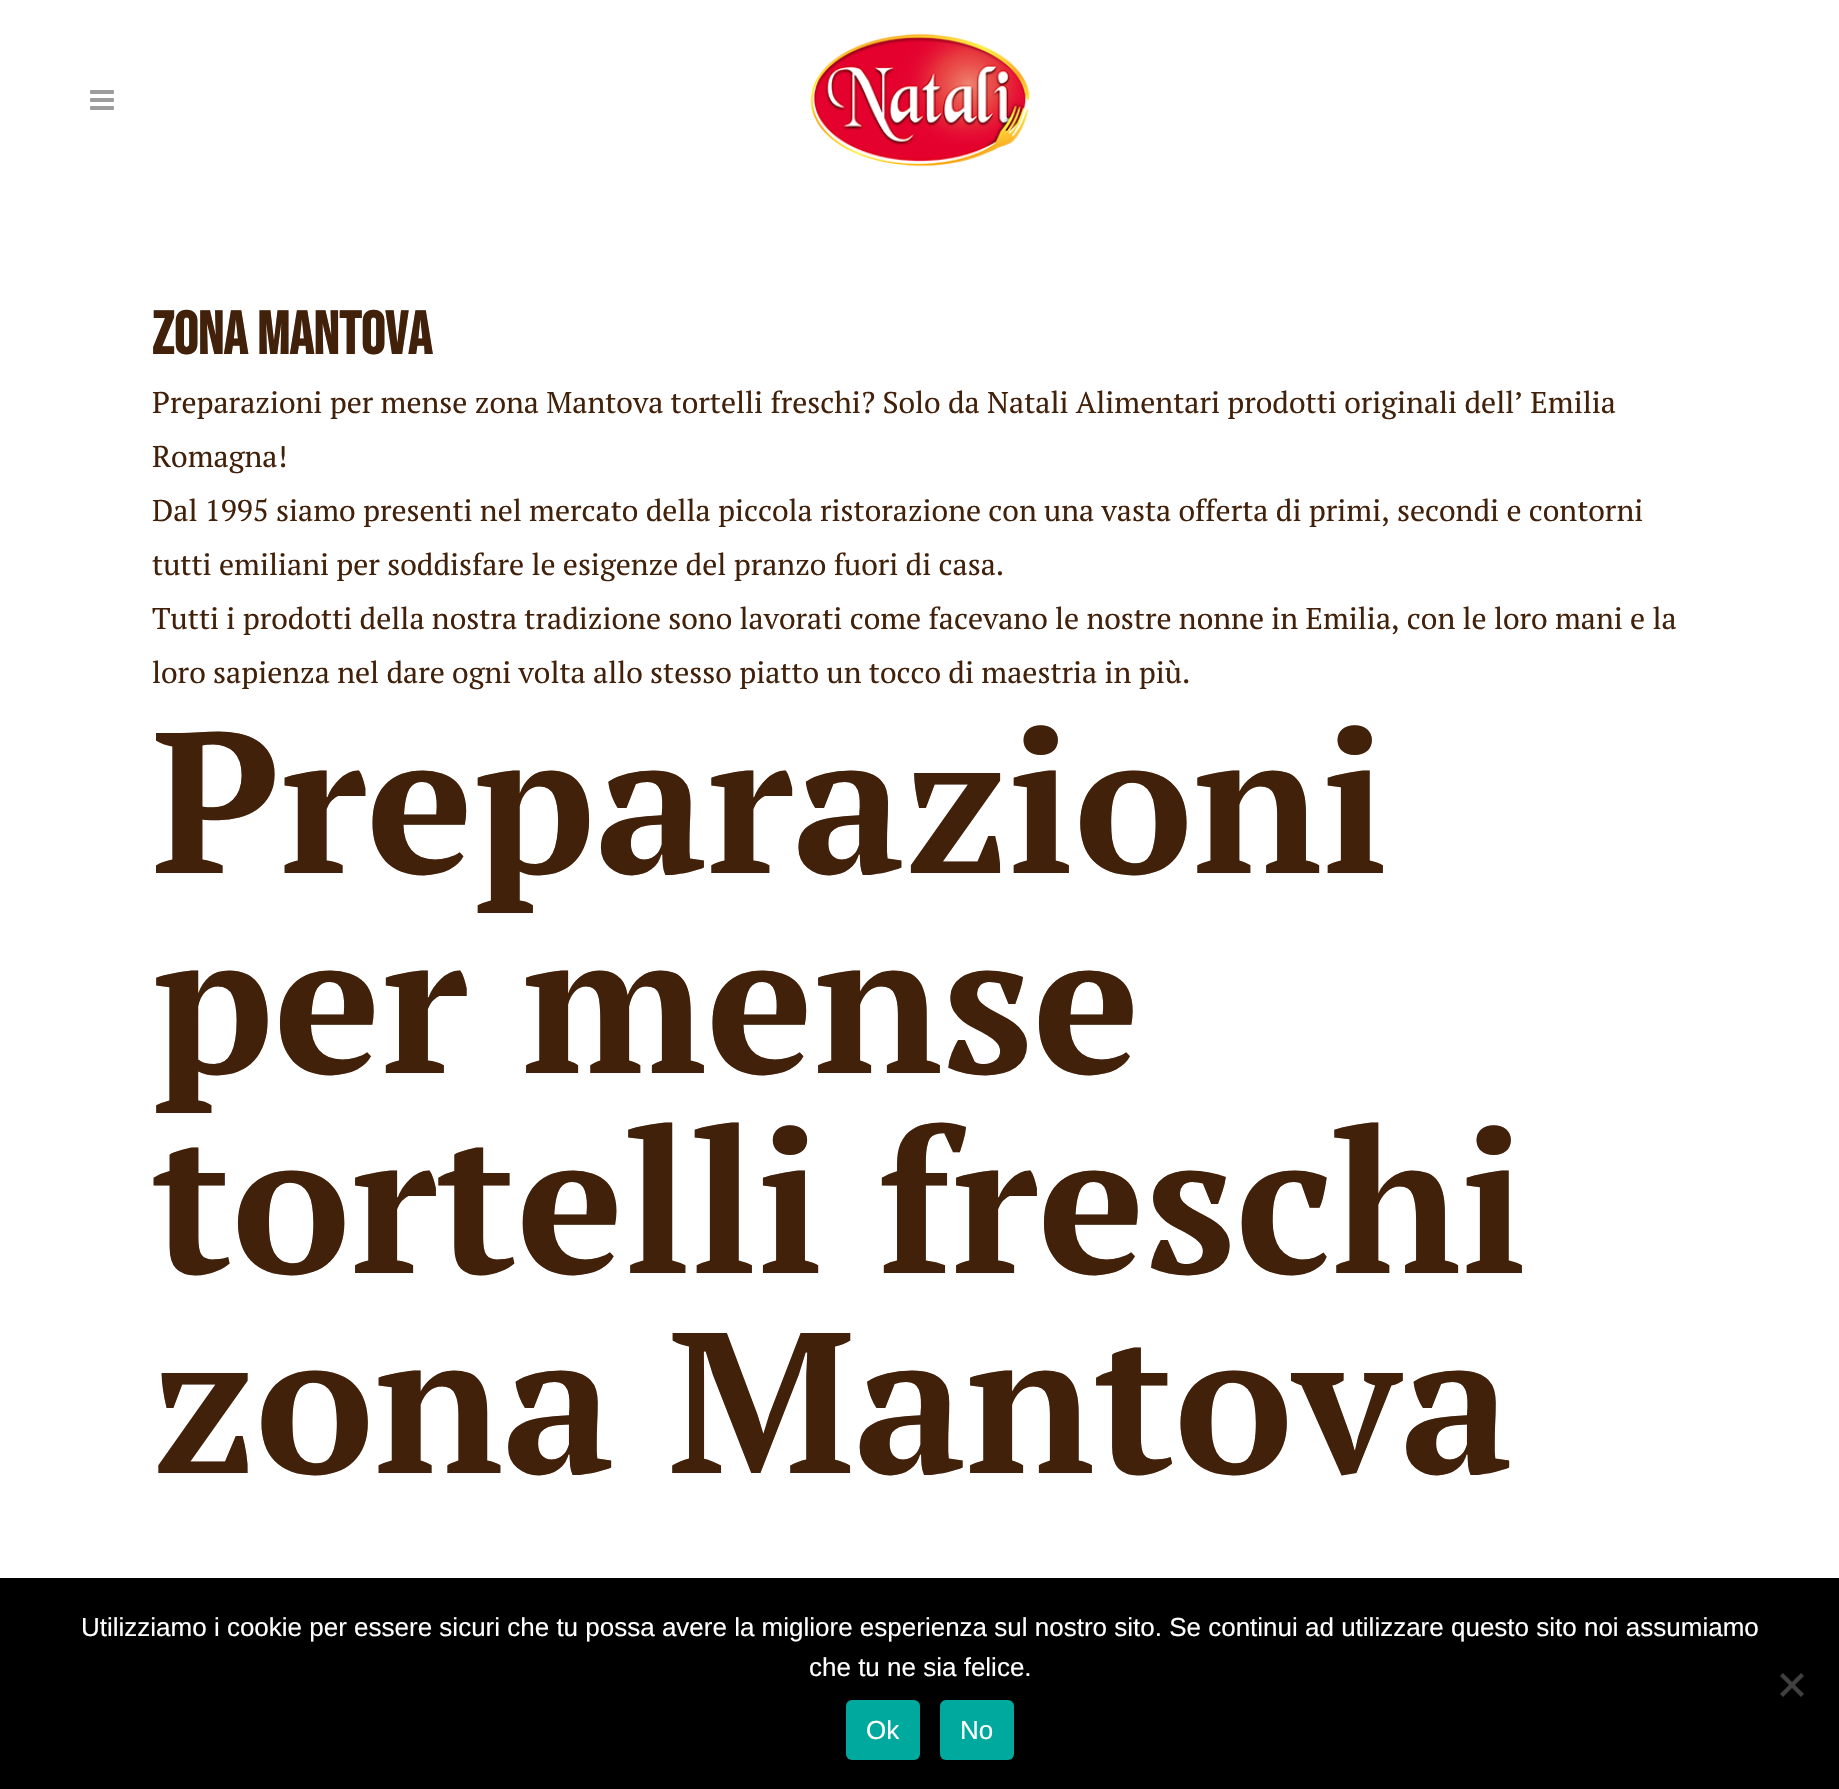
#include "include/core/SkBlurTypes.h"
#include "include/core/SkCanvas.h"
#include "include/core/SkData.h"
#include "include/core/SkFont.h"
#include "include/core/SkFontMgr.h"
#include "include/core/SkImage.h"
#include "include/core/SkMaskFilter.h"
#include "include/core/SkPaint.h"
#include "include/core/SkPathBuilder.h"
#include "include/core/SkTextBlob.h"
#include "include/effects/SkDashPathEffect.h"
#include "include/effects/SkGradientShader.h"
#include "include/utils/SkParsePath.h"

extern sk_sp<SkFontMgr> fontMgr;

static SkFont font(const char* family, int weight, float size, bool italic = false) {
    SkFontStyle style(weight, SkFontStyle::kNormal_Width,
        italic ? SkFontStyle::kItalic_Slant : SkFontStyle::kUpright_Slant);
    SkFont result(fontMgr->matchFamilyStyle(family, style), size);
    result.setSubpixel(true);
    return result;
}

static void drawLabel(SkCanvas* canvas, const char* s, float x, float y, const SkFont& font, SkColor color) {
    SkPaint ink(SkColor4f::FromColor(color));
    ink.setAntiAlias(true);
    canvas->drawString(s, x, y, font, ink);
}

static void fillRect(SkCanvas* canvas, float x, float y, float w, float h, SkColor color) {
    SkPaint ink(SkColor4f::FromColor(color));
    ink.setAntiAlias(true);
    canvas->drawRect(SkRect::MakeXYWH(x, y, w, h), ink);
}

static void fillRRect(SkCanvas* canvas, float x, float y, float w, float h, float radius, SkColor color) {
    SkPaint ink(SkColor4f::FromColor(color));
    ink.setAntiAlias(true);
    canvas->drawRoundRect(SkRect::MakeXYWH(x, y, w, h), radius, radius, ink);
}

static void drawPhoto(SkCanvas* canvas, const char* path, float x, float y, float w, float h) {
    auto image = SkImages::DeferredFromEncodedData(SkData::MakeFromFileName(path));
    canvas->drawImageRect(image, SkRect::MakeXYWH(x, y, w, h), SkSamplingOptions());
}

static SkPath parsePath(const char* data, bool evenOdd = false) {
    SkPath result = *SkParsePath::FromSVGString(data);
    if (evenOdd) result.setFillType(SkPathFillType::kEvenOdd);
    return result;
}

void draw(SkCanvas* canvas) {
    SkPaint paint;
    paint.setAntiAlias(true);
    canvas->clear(0xFFFFFFFF);
    drawPhoto(canvas, "assets/img1.png", 90, 90, 24, 20);
    drawPhoto(canvas, "assets/img2.png", 810, 33, 220, 134);
    SkFont font1 = font("Bebas Neue", 700, 60);
    drawLabel(canvas, "zona Mantova", 152, 354, font1, 0xFF42210B);
    SkFont font2 = font("PT Serif", 400, 30);
    drawLabel(canvas, "Preparazioni per mense zona Mantova tortelli freschi? Solo da Natali Alimentari prodotti originali dell’ Emilia", 152, 413, font2, 0xFF42210B);
    drawLabel(canvas, "Romagna!", 152, 467, font2, 0xFF42210B);
    drawLabel(canvas, "Dal 1995 siamo presenti nel mercato della piccola ristorazione con una vasta offerta di primi, secondi e contorni", 152, 521, font2, 0xFF42210B);
    drawLabel(canvas, "tutti emiliani per soddisfare le esigenze del pranzo fuori di casa.", 152, 575, font2, 0xFF42210B);
    drawLabel(canvas, "Tutti i prodotti della nostra tradizione sono lavorati come facevano le nostre nonne in Emilia, con le loro mani e la", 152, 629, font2, 0xFF42210B);
    drawLabel(canvas, "loro sapienza nel dare ogni volta allo stesso piatto un tocco di maestria in più.", 152, 683, font2, 0xFF42210B);
    SkFont font3 = font("PT Serif", 700, 200);
    drawLabel(canvas, "Preparazioni", 152, 873, font3, 0xFF42210B);
    drawLabel(canvas, "per mense", 152, 1073, font3, 0xFF42210B);
    drawLabel(canvas, "tortelli freschi", 152, 1273, font3, 0xFF42210B);
    drawLabel(canvas, "zona Mantova", 152, 1473, font3, 0xFF42210B);
    fillRect(canvas, 0, 1578, 1839, 211, 0xFF000000);
    SkFont font4 = font("Liberation Sans", 400, 26);
    drawLabel(canvas, "Utilizziamo i cookie per essere sicuri che tu possa avere la migliore esperienza sul nostro sito. Se continui ad utilizzare questo sito noi assumiamo", 81, 1636, font4, 0xFFFFFFFF);
    drawLabel(canvas, "che tu ne sia felice.", 809, 1676, font4, 0xFFFFFFFF);
    paint.setColor(0xFF404040);
    canvas->drawPath(parsePath("M1801 1673L1804 1676L1783 1697L1780 1694Z"), paint);
    canvas->drawPath(parsePath("M1780 1676L1783 1673L1804 1694L1801 1697Z"), paint);
    fillRRect(canvas, 846, 1700, 74, 60, 6, 0xFF00A99D);
    drawLabel(canvas, "Ok", 866, 1739, font4, 0xFFFFFFFF);
    fillRRect(canvas, 940, 1700, 74, 60, 6, 0xFF00A99D);
    drawLabel(canvas, "No", 960, 1739, font4, 0xFFFFFFFF);
}
